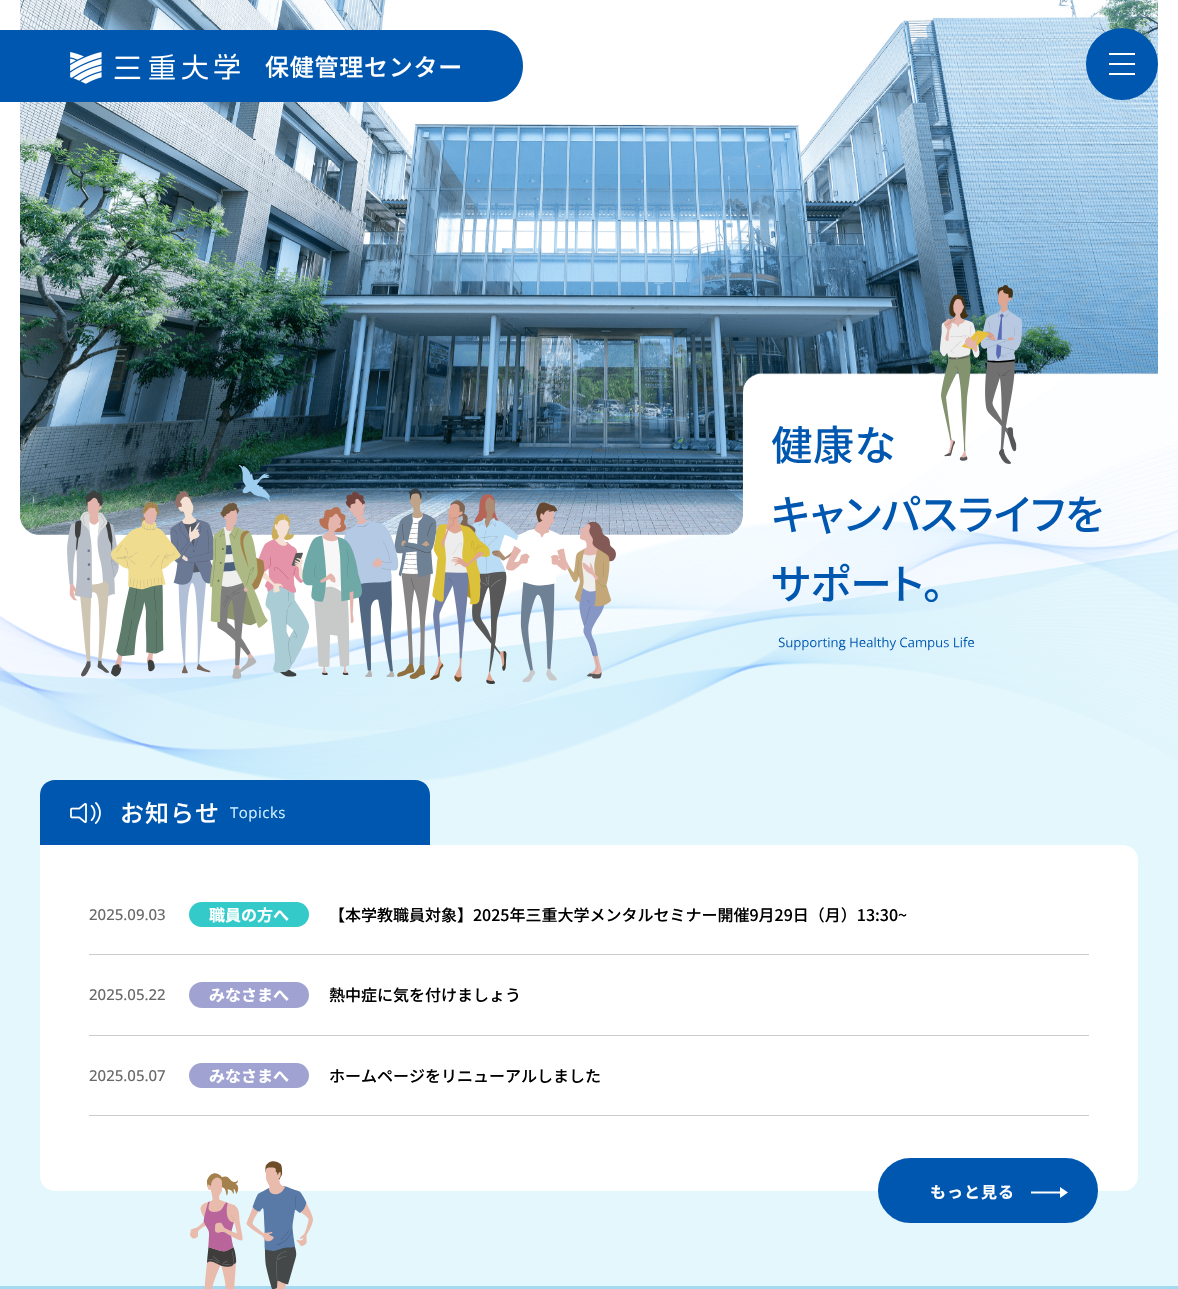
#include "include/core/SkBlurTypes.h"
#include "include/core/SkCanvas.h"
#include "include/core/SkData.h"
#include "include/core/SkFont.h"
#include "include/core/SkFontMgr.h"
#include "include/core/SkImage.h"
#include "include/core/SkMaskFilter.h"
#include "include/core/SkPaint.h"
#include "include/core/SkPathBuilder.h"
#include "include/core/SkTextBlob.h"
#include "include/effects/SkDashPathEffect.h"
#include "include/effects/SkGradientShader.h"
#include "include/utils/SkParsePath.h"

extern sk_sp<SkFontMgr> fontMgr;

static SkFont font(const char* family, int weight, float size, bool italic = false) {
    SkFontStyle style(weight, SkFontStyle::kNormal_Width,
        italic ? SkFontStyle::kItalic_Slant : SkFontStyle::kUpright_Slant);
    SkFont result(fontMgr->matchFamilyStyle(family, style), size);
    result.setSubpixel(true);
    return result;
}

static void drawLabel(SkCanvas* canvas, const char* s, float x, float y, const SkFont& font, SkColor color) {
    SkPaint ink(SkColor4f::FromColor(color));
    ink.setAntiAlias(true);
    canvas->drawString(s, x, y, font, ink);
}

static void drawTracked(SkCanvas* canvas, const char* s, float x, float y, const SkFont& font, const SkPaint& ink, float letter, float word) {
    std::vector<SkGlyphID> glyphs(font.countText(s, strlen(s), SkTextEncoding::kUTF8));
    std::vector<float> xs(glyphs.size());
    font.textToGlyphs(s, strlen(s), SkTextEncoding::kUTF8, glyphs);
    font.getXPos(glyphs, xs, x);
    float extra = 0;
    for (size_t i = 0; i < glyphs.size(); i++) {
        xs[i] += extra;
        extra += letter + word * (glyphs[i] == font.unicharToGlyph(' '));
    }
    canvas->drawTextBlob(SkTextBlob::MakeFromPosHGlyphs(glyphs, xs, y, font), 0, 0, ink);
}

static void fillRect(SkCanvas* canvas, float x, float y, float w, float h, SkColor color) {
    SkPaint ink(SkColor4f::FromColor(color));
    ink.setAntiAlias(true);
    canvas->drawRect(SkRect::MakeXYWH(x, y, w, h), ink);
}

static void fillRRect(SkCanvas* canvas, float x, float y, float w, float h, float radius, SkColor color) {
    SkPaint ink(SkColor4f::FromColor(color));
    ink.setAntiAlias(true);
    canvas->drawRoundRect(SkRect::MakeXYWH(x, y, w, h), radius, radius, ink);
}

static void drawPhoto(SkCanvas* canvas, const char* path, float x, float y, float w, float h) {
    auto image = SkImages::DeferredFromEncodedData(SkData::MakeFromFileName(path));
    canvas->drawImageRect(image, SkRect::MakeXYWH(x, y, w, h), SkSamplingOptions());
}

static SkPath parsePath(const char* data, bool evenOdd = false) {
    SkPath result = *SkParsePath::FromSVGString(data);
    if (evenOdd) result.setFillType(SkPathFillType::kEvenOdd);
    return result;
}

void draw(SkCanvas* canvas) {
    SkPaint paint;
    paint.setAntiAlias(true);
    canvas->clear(0xFFFFFFFF);
    drawPhoto(canvas, "assets/img6.png", 0, 311, 1178, 524);
    drawPhoto(canvas, "assets/img2.png", 20, 0, 1138, 535);
    paint.setColor(0xFF0057B0);
    canvas->drawPath(parsePath("M0 30H487C507 30 523 46 523 66C523 86 507 102 487 102H0Z"), paint);
    drawPhoto(canvas, "assets/img1.png", 70, 52, 170, 32);
    SkFont font1 = font("Noto Sans JP", 500, 24);
    paint.setColor(0xFFFFFFFF);
    drawTracked(canvas, "保健管理センター", 265, 76, font1, paint, 0.75f, 0);
    paint.setColor(0xFF0057B0);
    canvas->drawCircle(1122, 64, 35, paint);
    paint.setStroke(true);
    paint.setStrokeWidth(2);
    canvas->drawCircle(1122, 64, 35, paint);
    fillRect(canvas, 1109, 53, 26, 2, 0xFFFFFFFF);
    fillRect(canvas, 1109, 63, 26, 2, 0xFFFFFFFF);
    fillRect(canvas, 1109, 73, 26, 2, 0xFFFFFFFF);
    drawPhoto(canvas, "assets/img3.png", 67, 465, 549, 219);
    drawPhoto(canvas, "assets/img5.png", 772, 425, 330, 226);
    drawPhoto(canvas, "assets/img4.png", 940, 285, 82, 179);
    fillRect(canvas, 0, 835, 1178, 451, 0xFFE3F7FC);
    paint.setStroke(false);
    paint.setColor(0xFFFFFFFF);
    canvas->drawPath(parsePath("M40 845H1123C1131.5 845 1138 851.5 1138 860V1176C1138 1184.5 1131.5 1191 1123 1191H55C46.5 1191 40 1184.5 40 1176Z"), paint);
    paint.setColor(0xFF0057B0);
    canvas->drawPath(parsePath("M55 780H415C423.5 780 430 786.5 430 795V845H40V795C40 786.5 46.5 780 55 780Z"), paint);
    drawPhoto(canvas, "assets/img7.png", 70, 802, 31, 22);
    paint.setColor(0xFFFFFFFF);
    drawTracked(canvas, "お知らせ", 120, 822, font1, paint, 1, 0);
    SkFont font2 = font("Open Sans", 400, 15);
    paint.setColor(0xFFD0F0FF);
    drawTracked(canvas, "Topicks", 230, 818, font2, paint, 0.5f, 0);
    fillRect(canvas, 89, 954, 1000, 1, 0xFFCCCCCC);
    SkFont font3 = font("Open Sans", 500, 15);
    drawLabel(canvas, "2025.09.03", 89, 920, font3, 0xFF696969);
    fillRRect(canvas, 189, 902, 120, 25, 12.5f, 0xFF34CACA);
    SkFont font4 = font("Noto Sans JP", 700, 16);
    drawLabel(canvas, "職員の方へ", 209, 921, font4, 0xFFFFFFFF);
    SkFont font5 = font("Noto Sans JP", 500, 16);
    drawLabel(canvas, "【本学教職員対象】2025年三重大学メンタルセミナー開催9月29日（月）13:30~", 329, 921, font5, 0xFF000000);
    fillRect(canvas, 89, 1035, 1000, 1, 0xFFCCCCCC);
    drawLabel(canvas, "2025.05.22", 89, 1000, font3, 0xFF696969);
    fillRRect(canvas, 189, 982, 120, 26, 13, 0xFFA0A3D1);
    drawLabel(canvas, "みなさまへ", 209, 1001, font4, 0xFFFFFFFF);
    drawLabel(canvas, "熱中症に気を付けましょう", 329, 1001, font5, 0xFF000000);
    fillRect(canvas, 89, 1115, 1000, 1, 0xFFCCCCCC);
    drawLabel(canvas, "2025.05.07", 89, 1081, font3, 0xFF696969);
    fillRRect(canvas, 189, 1063, 120, 25, 12.5f, 0xFFA0A3D1);
    drawLabel(canvas, "みなさまへ", 209, 1082, font4, 0xFFFFFFFF);
    drawLabel(canvas, "ホームページをリニューアルしました", 329, 1082, font5, 0xFF000000);
    paint.setColor(0xFF0057B0);
    canvas->drawRoundRect(SkRect::MakeXYWH(879, 1159, 218, 63), 31.5f, 31.5f, paint);
    paint.setStroke(true);
    canvas->drawRoundRect(SkRect::MakeXYWH(879, 1159, 218, 63), 31.5f, 31.5f, paint);
    paint.setStroke(false);
    paint.setColor(0xFFFFFFFF);
    drawTracked(canvas, "もっと見る", 930, 1198, font4, paint, 1, 0);
    paint.setStroke(true);
    canvas->drawPath(parsePath("M1031 1192.5H1061"), paint);
    paint.setStroke(false);
    canvas->drawPath(parsePath("M1068 1192.5L1060 1198V1187Z"), paint);
    fillRect(canvas, 0, 1286, 1178, 3, 0xFFA3DAF2);
    drawPhoto(canvas, "assets/img8.png", 190, 1161, 123, 128);
}
